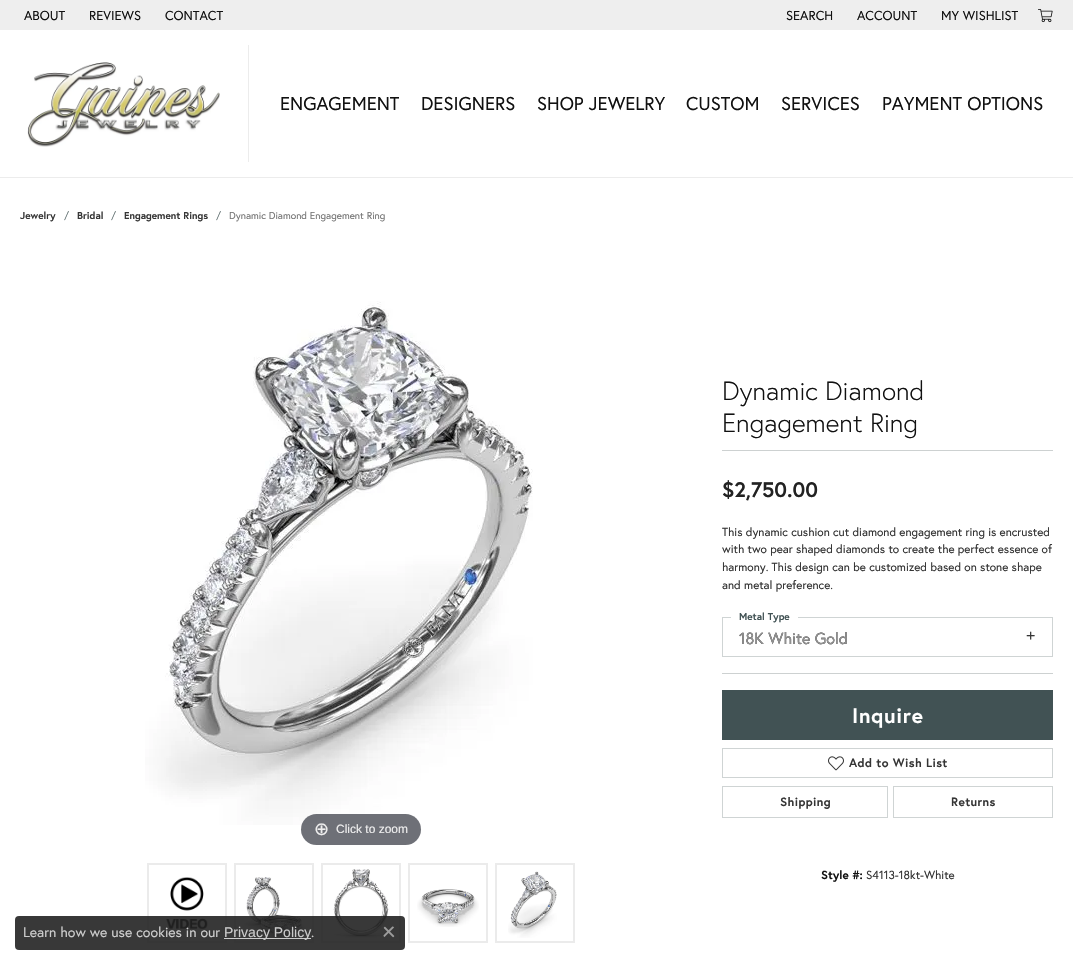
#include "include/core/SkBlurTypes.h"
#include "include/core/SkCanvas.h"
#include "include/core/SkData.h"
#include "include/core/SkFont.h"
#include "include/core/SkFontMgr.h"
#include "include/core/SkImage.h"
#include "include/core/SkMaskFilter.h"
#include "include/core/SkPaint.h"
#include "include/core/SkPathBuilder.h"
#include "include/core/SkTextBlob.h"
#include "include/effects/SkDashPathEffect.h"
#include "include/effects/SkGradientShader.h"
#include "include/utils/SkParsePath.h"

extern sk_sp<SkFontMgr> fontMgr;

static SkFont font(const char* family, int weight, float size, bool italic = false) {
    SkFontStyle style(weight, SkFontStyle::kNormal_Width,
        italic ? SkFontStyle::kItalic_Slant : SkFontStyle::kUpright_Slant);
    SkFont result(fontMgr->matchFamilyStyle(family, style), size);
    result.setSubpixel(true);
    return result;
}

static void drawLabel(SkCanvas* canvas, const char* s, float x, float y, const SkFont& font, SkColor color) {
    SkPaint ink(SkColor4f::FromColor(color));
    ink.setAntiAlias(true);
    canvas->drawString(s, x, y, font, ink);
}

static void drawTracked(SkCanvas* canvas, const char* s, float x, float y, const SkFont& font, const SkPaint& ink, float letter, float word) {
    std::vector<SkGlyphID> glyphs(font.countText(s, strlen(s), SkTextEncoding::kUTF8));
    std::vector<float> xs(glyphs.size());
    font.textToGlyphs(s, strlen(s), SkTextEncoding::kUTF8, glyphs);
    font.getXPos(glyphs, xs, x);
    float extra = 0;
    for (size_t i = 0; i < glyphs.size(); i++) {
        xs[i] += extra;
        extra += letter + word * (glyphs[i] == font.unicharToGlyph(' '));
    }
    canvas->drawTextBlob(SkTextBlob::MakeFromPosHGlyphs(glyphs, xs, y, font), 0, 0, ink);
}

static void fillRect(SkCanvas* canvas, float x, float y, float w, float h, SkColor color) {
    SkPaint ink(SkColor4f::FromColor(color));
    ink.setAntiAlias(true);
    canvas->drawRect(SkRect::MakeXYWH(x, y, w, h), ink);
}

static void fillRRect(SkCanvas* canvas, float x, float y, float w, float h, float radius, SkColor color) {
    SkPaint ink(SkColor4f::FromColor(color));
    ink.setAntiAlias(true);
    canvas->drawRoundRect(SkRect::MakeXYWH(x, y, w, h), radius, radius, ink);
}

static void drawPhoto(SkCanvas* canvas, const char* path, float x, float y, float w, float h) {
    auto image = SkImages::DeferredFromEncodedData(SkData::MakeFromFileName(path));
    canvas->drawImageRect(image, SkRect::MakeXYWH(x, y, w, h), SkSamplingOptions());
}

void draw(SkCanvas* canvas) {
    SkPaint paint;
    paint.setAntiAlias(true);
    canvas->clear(0xFFFFFFFF);
    fillRect(canvas, 0, 0, 1073, 30, 0xFFEEEEEE);
    SkFont font1 = font("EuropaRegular", 400, 13);
    drawLabel(canvas, "ABOUT", 24, 20, font1, 0xFF111111);
    drawLabel(canvas, "REVIEWS", 89, 20, font1, 0xFF111111);
    drawLabel(canvas, "CONTACT", 165, 20, font1, 0xFF111111);
    drawLabel(canvas, "SEARCH", 786, 20, font1, 0xFF111111);
    drawLabel(canvas, "ACCOUNT", 857, 20, font1, 0xFF111111);
    drawLabel(canvas, "MY WISHLIST", 941, 20, font1, 0xFF111111);
    drawPhoto(canvas, "assets/img1.png", 1038, 9, 15, 14);
    fillRect(canvas, 0, 177, 1073, 1, 0xFFECECEC);
    fillRect(canvas, 248, 45, 1, 117, 0xFFECECEC);
    drawPhoto(canvas, "assets/img2.png", 27, 62, 193, 85);
    SkFont font2 = font("EuropaRegular", 400, 18.5f);
    drawLabel(canvas, "ENGAGEMENT", 280, 110, font2, 0xFF111111);
    drawLabel(canvas, "DESIGNERS", 421, 110, font2, 0xFF111111);
    drawLabel(canvas, "SHOP JEWELRY", 537, 110, font2, 0xFF111111);
    drawLabel(canvas, "CUSTOM", 686, 110, font2, 0xFF111111);
    drawLabel(canvas, "SERVICES", 781, 110, font2, 0xFF111111);
    drawLabel(canvas, "PAYMENT OPTIONS", 882, 110, font2, 0xFF111111);
    SkFont font3 = font("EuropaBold", 700, 10);
    drawLabel(canvas, "Jewelry", 20, 219, font3, 0xFF353535);
    SkFont font4 = font("EuropaRegular", 400, 10);
    drawLabel(canvas, "/", 64, 219, font4, 0xFF5D6C6D);
    drawLabel(canvas, "Bridal", 77, 219, font3, 0xFF353535);
    drawLabel(canvas, "/", 111, 219, font4, 0xFF5D6C6D);
    drawLabel(canvas, "Engagement Rings", 124, 219, font3, 0xFF353535);
    drawLabel(canvas, "/", 216, 219, font4, 0xFF5D6C6D);
    drawLabel(canvas, "Dynamic Diamond Engagement Ring", 229, 219, font4, 0xFF757575);
    drawPhoto(canvas, "assets/img3.png", 145, 301, 388, 524);
    fillRRect(canvas, 301, 814, 120, 31, 15.5f, 0xB331333D);
    SkFont font5 = font("DejaVu Sans", 400, 18);
    drawLabel(canvas, "⊕", 314, 835, font5, 0xFFEEEEEE);
    SkFont font6 = font("Liberation Sans", 400, 12);
    drawLabel(canvas, "Click to zoom", 336, 833, font6, 0xFFEEEEEE);
    paint.setStroke(true);
    paint.setStrokeWidth(2);
    paint.setColor(0xFFEBEBEB);
    canvas->drawRect(SkRect::MakeXYWH(148, 864, 78, 78), paint);
    drawPhoto(canvas, "assets/img4.png", 166, 877, 42, 53);
    canvas->drawRect(SkRect::MakeXYWH(235, 864, 78, 78), paint);
    drawPhoto(canvas, "assets/img5.png", 242, 877, 65, 61);
    canvas->drawRect(SkRect::MakeXYWH(322, 864, 78, 78), paint);
    drawPhoto(canvas, "assets/img6.png", 332, 869, 58, 69);
    canvas->drawRect(SkRect::MakeXYWH(409, 864, 78, 78), paint);
    drawPhoto(canvas, "assets/img7.png", 417, 889, 62, 38);
    canvas->drawRect(SkRect::MakeXYWH(496, 864, 78, 78), paint);
    drawPhoto(canvas, "assets/img8.png", 508, 871, 49, 67);
    SkFont font7 = font("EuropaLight", 300, 26.25f);
    drawLabel(canvas, "Dynamic Diamond", 722, 400, font7, 0xFF111111);
    drawLabel(canvas, "Engagement Ring", 722, 432, font7, 0xFF111111);
    fillRect(canvas, 722, 450, 331, 1, 0xFFCDD1D1);
    SkFont font8 = font("EuropaBold", 700, 21);
    drawLabel(canvas, "$2,750.00", 722, 497, font8, 0xFF222222);
    SkFont font9 = font("EuropaRegular", 400, 11.7f);
    drawLabel(canvas, "This dynamic cushion cut diamond engagement ring is encrusted", 722, 536, font9, 0xFF353535);
    drawLabel(canvas, "with two pear shaped diamonds to create the perfect essence of", 722, 553, font9, 0xFF353535);
    drawLabel(canvas, "harmony. This design can be customized based on stone shape", 722, 571, font9, 0xFF353535);
    drawLabel(canvas, "and metal preference.", 722, 589, font9, 0xFF353535);
    paint.setStrokeWidth(1);
    paint.setColor(0xFFCFD4D4);
    canvas->drawRect(SkRect::MakeXYWH(722.5f, 617.5f, 330, 39), paint);
    fillRect(canvas, 731, 617, 67, 1, 0xFFFFFFFF);
    drawLabel(canvas, "Metal Type", 739, 620, font3, 0xFF415254);
    SkFont font10 = font("EuropaRegular", 400, 16);
    drawLabel(canvas, "18K White Gold", 739, 644, font10, 0xFF353535);
    SkFont font11 = font("Liberation Sans", 400, 16);
    drawLabel(canvas, "+", 1026, 641, font11, 0xFF353535);
    drawLabel(canvas, "18K White Gold", 739, 644, font10, 0xFF919191);
    fillRect(canvas, 722, 673, 331, 1, 0xFFCDD1D1);
    fillRect(canvas, 722, 690, 331, 50, 0xFF415254);
    paint.setStroke(false);
    paint.setColor(0xFFFFFFFF);
    drawTracked(canvas, "Inquire", 852, 723, font8, paint, 0.75f, 0);
    paint.setStroke(true);
    paint.setColor(0xFFCFD4D4);
    canvas->drawRect(SkRect::MakeXYWH(722.5f, 748.5f, 330, 29), paint);
    drawPhoto(canvas, "assets/img9.png", 828, 756, 16, 15);
    SkFont font12 = font("EuropaBold", 700, 12);
    paint.setStroke(false);
    paint.setColor(0xFF353535);
    drawTracked(canvas, "Add to Wish List", 849, 767, font12, paint, 0.4f, 0);
    paint.setStroke(true);
    paint.setColor(0xFFCFD4D4);
    canvas->drawRect(SkRect::MakeXYWH(722.5f, 786.5f, 165, 31), paint);
    paint.setStroke(false);
    paint.setColor(0xFF353535);
    drawTracked(canvas, "Shipping", 780, 806, font12, paint, 0.4f, 0);
    paint.setStroke(true);
    paint.setColor(0xFFCFD4D4);
    canvas->drawRect(SkRect::MakeXYWH(893.5f, 786.5f, 159, 31), paint);
    paint.setStroke(false);
    paint.setColor(0xFF353535);
    drawTracked(canvas, "Returns", 951, 806, font12, paint, 0.4f, 0);
    SkFont font13 = font("EuropaBold", 700, 11.7f);
    drawLabel(canvas, "Style #:", 821, 879, font13, 0xFF111111);
    drawLabel(canvas, "S4113-18kt-White", 866, 879, font9, 0xFF353535);
    fillRRect(canvas, 15, 916, 390, 34, 4, 0xE6222222);
    SkFont font14 = font("EuropaRegular", 400, 14);
    drawLabel(canvas, "Learn how we use cookies in our", 23, 937, font14, 0xFFCCCCCC);
    fillRect(canvas, 224, 938, 87, 1, 0xFFCCCCCC);
    SkFont font15 = font("Liberation Sans", 400, 14);
    drawLabel(canvas, "Privacy Policy", 224, 937, font15, 0xFFCCCCCC);
    drawLabel(canvas, ".", 311, 937, font14, 0xFFCCCCCC);
    drawPhoto(canvas, "assets/img10.png", 383, 926, 12, 12);
}
